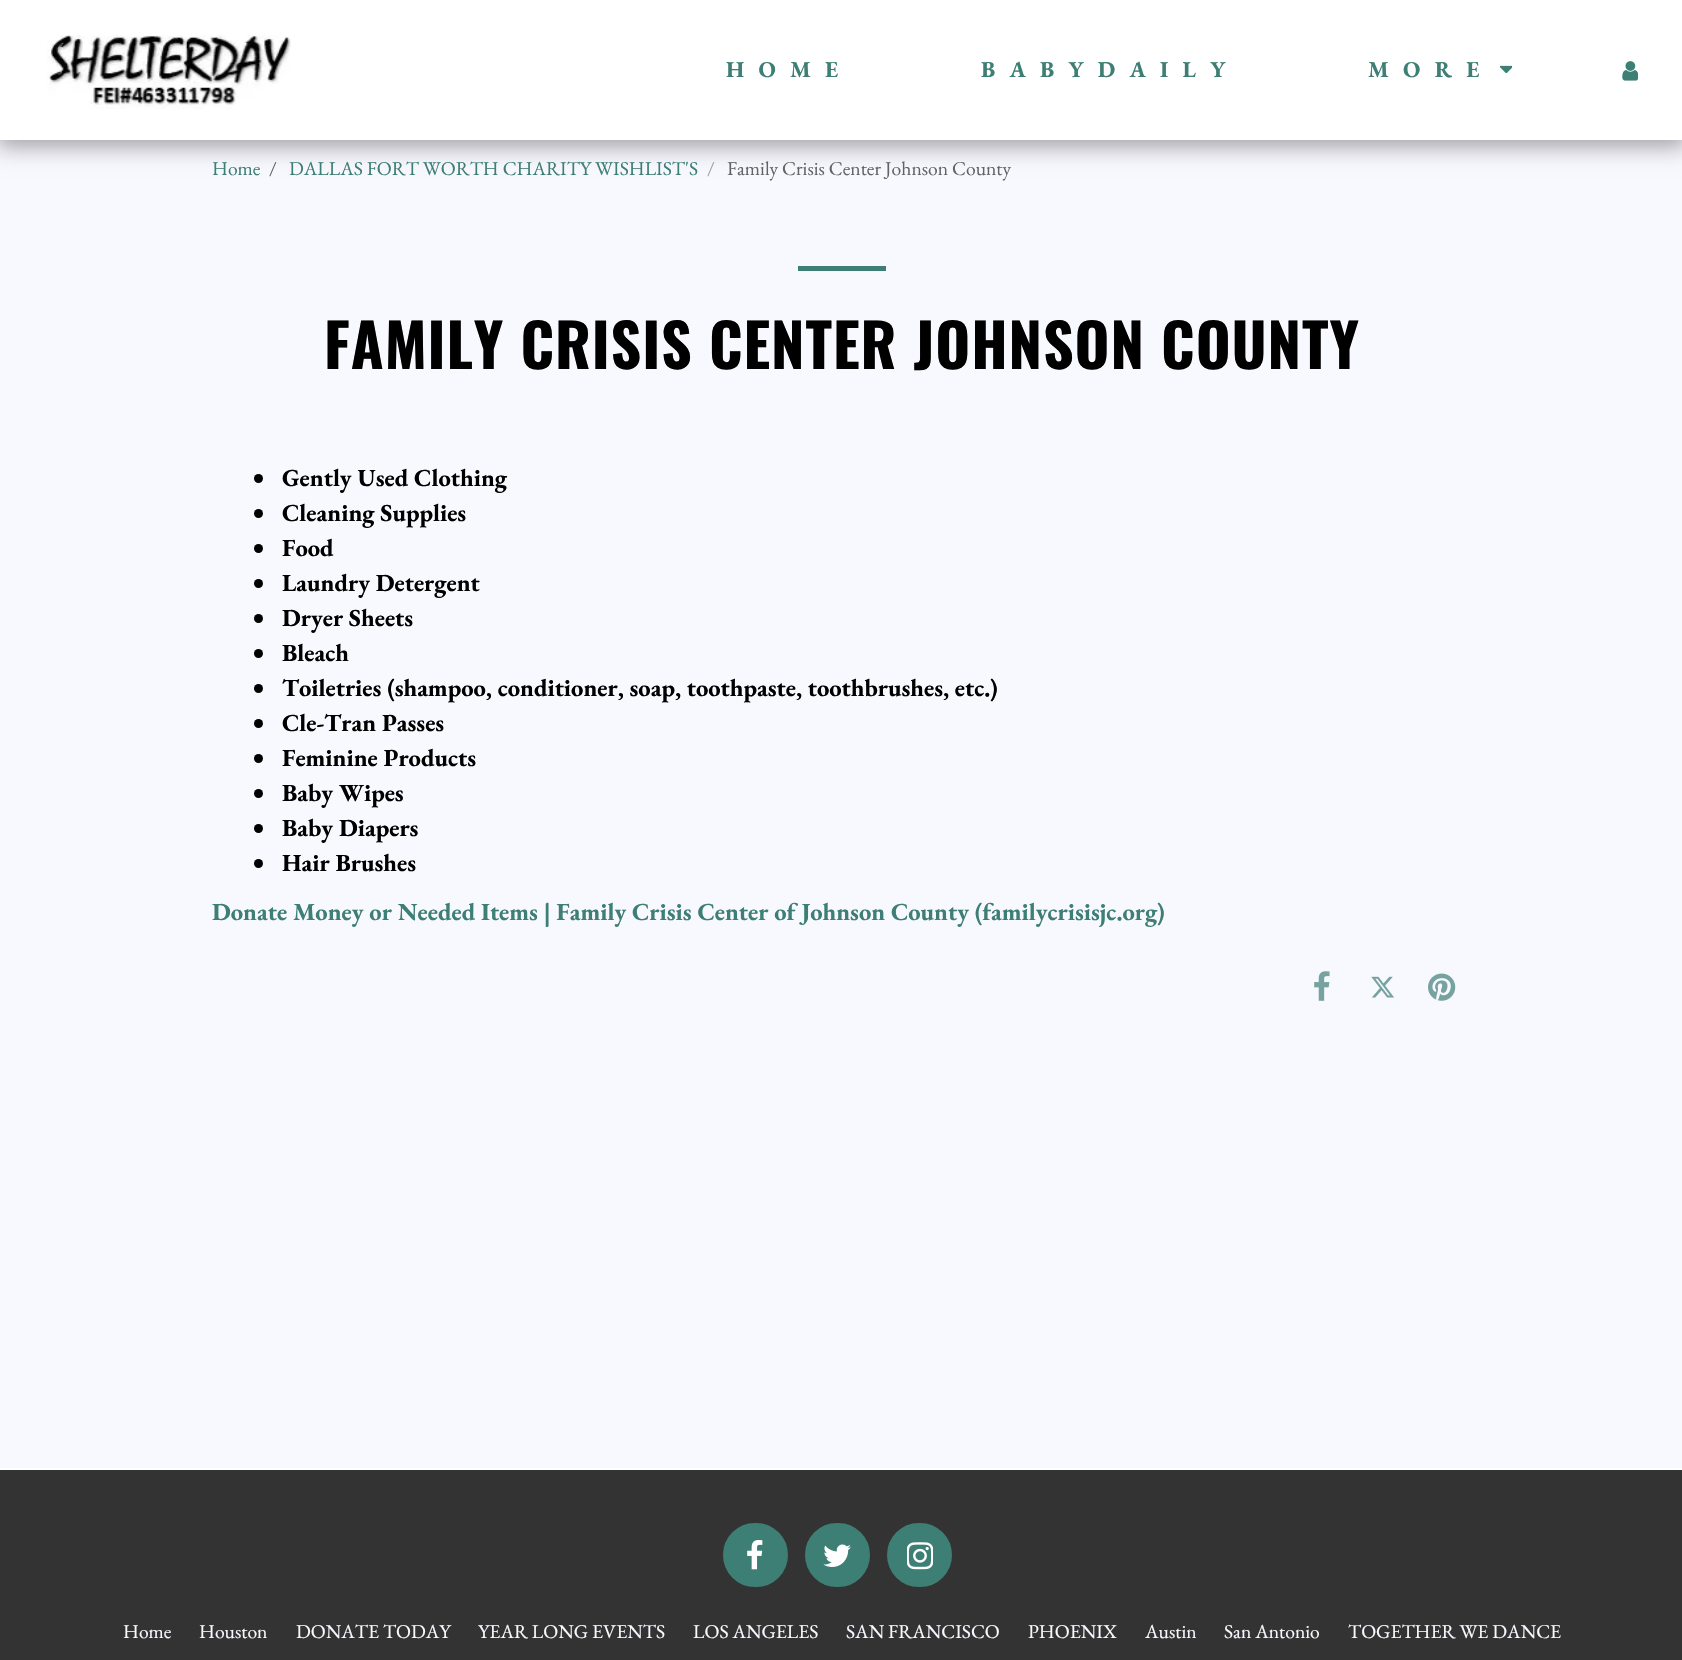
#include "include/core/SkBlurTypes.h"
#include "include/core/SkCanvas.h"
#include "include/core/SkData.h"
#include "include/core/SkFont.h"
#include "include/core/SkFontMgr.h"
#include "include/core/SkImage.h"
#include "include/core/SkMaskFilter.h"
#include "include/core/SkPaint.h"
#include "include/core/SkPathBuilder.h"
#include "include/core/SkTextBlob.h"
#include "include/effects/SkDashPathEffect.h"
#include "include/effects/SkGradientShader.h"
#include "include/utils/SkParsePath.h"

extern sk_sp<SkFontMgr> fontMgr;

static SkFont font(const char* family, int weight, float size, bool italic = false) {
    SkFontStyle style(weight, SkFontStyle::kNormal_Width,
        italic ? SkFontStyle::kItalic_Slant : SkFontStyle::kUpright_Slant);
    SkFont result(fontMgr->matchFamilyStyle(family, style), size);
    result.setSubpixel(true);
    return result;
}

static void drawLabel(SkCanvas* canvas, const char* s, float x, float y, const SkFont& font, SkColor color) {
    SkPaint ink(SkColor4f::FromColor(color));
    ink.setAntiAlias(true);
    canvas->drawString(s, x, y, font, ink);
}

static void drawTracked(SkCanvas* canvas, const char* s, float x, float y, const SkFont& font, const SkPaint& ink, float letter, float word) {
    std::vector<SkGlyphID> glyphs(font.countText(s, strlen(s), SkTextEncoding::kUTF8));
    std::vector<float> xs(glyphs.size());
    font.textToGlyphs(s, strlen(s), SkTextEncoding::kUTF8, glyphs);
    font.getXPos(glyphs, xs, x);
    float extra = 0;
    for (size_t i = 0; i < glyphs.size(); i++) {
        xs[i] += extra;
        extra += letter + word * (glyphs[i] == font.unicharToGlyph(' '));
    }
    canvas->drawTextBlob(SkTextBlob::MakeFromPosHGlyphs(glyphs, xs, y, font), 0, 0, ink);
}

static void fillRect(SkCanvas* canvas, float x, float y, float w, float h, SkColor color) {
    SkPaint ink(SkColor4f::FromColor(color));
    ink.setAntiAlias(true);
    canvas->drawRect(SkRect::MakeXYWH(x, y, w, h), ink);
}

static void drawPhoto(SkCanvas* canvas, const char* path, float x, float y, float w, float h) {
    auto image = SkImages::DeferredFromEncodedData(SkData::MakeFromFileName(path));
    canvas->drawImageRect(image, SkRect::MakeXYWH(x, y, w, h), SkSamplingOptions());
}

void draw(SkCanvas* canvas) {
    SkPaint paint;
    paint.setAntiAlias(true);
    canvas->clear(0xFFFFFFFF);
    fillRect(canvas, 0, 140, 1682, 1328, 0xFFF8F8FF);
    paint.setColor(0x59000000);
    paint.setMaskFilter(SkMaskFilter::MakeBlur(kNormal_SkBlurStyle, 10.5f));
    canvas->drawRect(SkRect::MakeXYWH(-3, 0, 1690, 147), paint);
    paint.setMaskFilter(nullptr);
    fillRect(canvas, 0, 0, 1682, 140, 0xFFFFFFFF);
    drawPhoto(canvas, "assets/img1.png", 47, 35, 244, 74);
    SkFont font1 = font("EB Garamond", 700, 22.75f);
    paint.setColor(0xFF3D7E75);
    drawTracked(canvas, "HOME", 726, 77, font1, paint, 14.25f, 0);
    drawTracked(canvas, "BABYDAILY", 981, 77, font1, paint, 14.25f, 0);
    drawTracked(canvas, "MORE", 1368, 77, font1, paint, 14.25f, 0);
    drawPhoto(canvas, "assets/img2.png", 1500, 65, 12, 9);
    drawPhoto(canvas, "assets/img3.png", 1622, 61, 16, 20);
    SkFont font2 = font("EB Garamond", 400, 19.6f);
    drawLabel(canvas, "Home", 212, 175, font2, 0xFF3D7E75);
    drawLabel(canvas, "/", 269, 175, font2, 0xFF636366);
    drawLabel(canvas, "DALLAS FORT WORTH CHARITY WISHLIST'S", 289, 175, font2, 0xFF3D7E75);
    drawLabel(canvas, "/", 707, 175, font2, 0xFF9F9FA3);
    drawLabel(canvas, "Family Crisis Center Johnson County", 727, 175, font2, 0xFF636366);
    fillRect(canvas, 798, 266, 88, 5, 0xFF3D7E75);
    SkFont font3 = font("Oswald", 700, 59.75f);
    paint.setColor(0xFF000000);
    drawTracked(canvas, "FAMILY CRISIS CENTER JOHNSON COUNTY", 324, 369, font3, paint, 0.9f, 0);
    canvas->drawCircle(258.5f, 478.5f, 4.5f, paint);
    SkFont font4 = font("EB Garamond", 700, 24.5f);
    drawLabel(canvas, "Gently Used Clothing", 282, 486, font4, 0xFF000000);
    canvas->drawCircle(258.5f, 513.5f, 4.5f, paint);
    drawLabel(canvas, "Cleaning Supplies", 282, 521, font4, 0xFF000000);
    canvas->drawCircle(258.5f, 548.5f, 4.5f, paint);
    drawLabel(canvas, "Food", 282, 556, font4, 0xFF000000);
    canvas->drawCircle(258.5f, 583.5f, 4.5f, paint);
    drawLabel(canvas, "Laundry Detergent", 282, 591, font4, 0xFF000000);
    canvas->drawCircle(258.5f, 618.5f, 4.5f, paint);
    drawLabel(canvas, "Dryer Sheets", 282, 626, font4, 0xFF000000);
    canvas->drawCircle(258.5f, 653.5f, 4.5f, paint);
    drawLabel(canvas, "Bleach", 282, 661, font4, 0xFF000000);
    canvas->drawCircle(258.5f, 688.5f, 4.5f, paint);
    drawLabel(canvas, "Toiletries (shampoo, conditioner, soap, toothpaste, toothbrushes, etc.)", 282, 696, font4, 0xFF000000);
    canvas->drawCircle(258.5f, 723.5f, 4.5f, paint);
    drawLabel(canvas, "Cle-Tran Passes", 282, 731, font4, 0xFF000000);
    canvas->drawCircle(258.5f, 758.5f, 4.5f, paint);
    drawLabel(canvas, "Feminine Products", 282, 766, font4, 0xFF000000);
    canvas->drawCircle(258.5f, 793.5f, 4.5f, paint);
    drawLabel(canvas, "Baby Wipes", 282, 801, font4, 0xFF000000);
    canvas->drawCircle(258.5f, 828.5f, 4.5f, paint);
    drawLabel(canvas, "Baby Diapers", 282, 836, font4, 0xFF000000);
    canvas->drawCircle(258.5f, 863.5f, 4.5f, paint);
    drawLabel(canvas, "Hair Brushes", 282, 871, font4, 0xFF000000);
    drawLabel(canvas, "Donate Money or Needed Items | Family Crisis Center of Johnson County (familycrisisjc.org)", 212, 920, font4, 0xFF3D7E75);
    drawPhoto(canvas, "assets/img4.png", 1314, 971, 16, 30);
    drawPhoto(canvas, "assets/img5.png", 1371, 976, 23, 22);
    drawPhoto(canvas, "assets/img6.png", 1428, 973, 28, 28);
    fillRect(canvas, 0, 1470, 1682, 190, 0xFF333333);
    paint.setColor(0xFF3D7E75);
    canvas->drawRoundRect(SkRect::MakeXYWH(724, 1524, 63, 62), 31, 31, paint);
    paint.setStroke(true);
    paint.setStrokeWidth(2);
    canvas->drawRoundRect(SkRect::MakeXYWH(724, 1524, 63, 62), 31, 31, paint);
    drawPhoto(canvas, "assets/img7.png", 747, 1540, 16, 30);
    paint.setStroke(false);
    canvas->drawRoundRect(SkRect::MakeXYWH(806, 1524, 63, 62), 31, 31, paint);
    paint.setStroke(true);
    canvas->drawRoundRect(SkRect::MakeXYWH(806, 1524, 63, 62), 31, 31, paint);
    drawPhoto(canvas, "assets/img8.png", 823, 1544, 28, 23);
    paint.setStroke(false);
    canvas->drawRoundRect(SkRect::MakeXYWH(888, 1524, 63, 62), 31, 31, paint);
    paint.setStroke(true);
    canvas->drawRoundRect(SkRect::MakeXYWH(888, 1524, 63, 62), 31, 31, paint);
    drawPhoto(canvas, "assets/img9.png", 907, 1542, 26, 28);
    drawLabel(canvas, "Home", 123, 1638, font2, 0xFFF8F8FF);
    drawLabel(canvas, "Houston", 199, 1638, font2, 0xFFF8F8FF);
    drawLabel(canvas, "DONATE TODAY", 296, 1638, font2, 0xFFF8F8FF);
    drawLabel(canvas, "YEAR LONG EVENTS", 478, 1638, font2, 0xFFF8F8FF);
    drawLabel(canvas, "LOS ANGELES", 693, 1638, font2, 0xFFF8F8FF);
    drawLabel(canvas, "SAN FRANCISCO", 846, 1638, font2, 0xFFF8F8FF);
    drawLabel(canvas, "PHOENIX", 1028, 1638, font2, 0xFFF8F8FF);
    drawLabel(canvas, "Austin", 1145, 1638, font2, 0xFFF8F8FF);
    drawLabel(canvas, "San Antonio", 1224, 1638, font2, 0xFFF8F8FF);
    drawLabel(canvas, "TOGETHER WE DANCE", 1348, 1638, font2, 0xFFF8F8FF);
}
